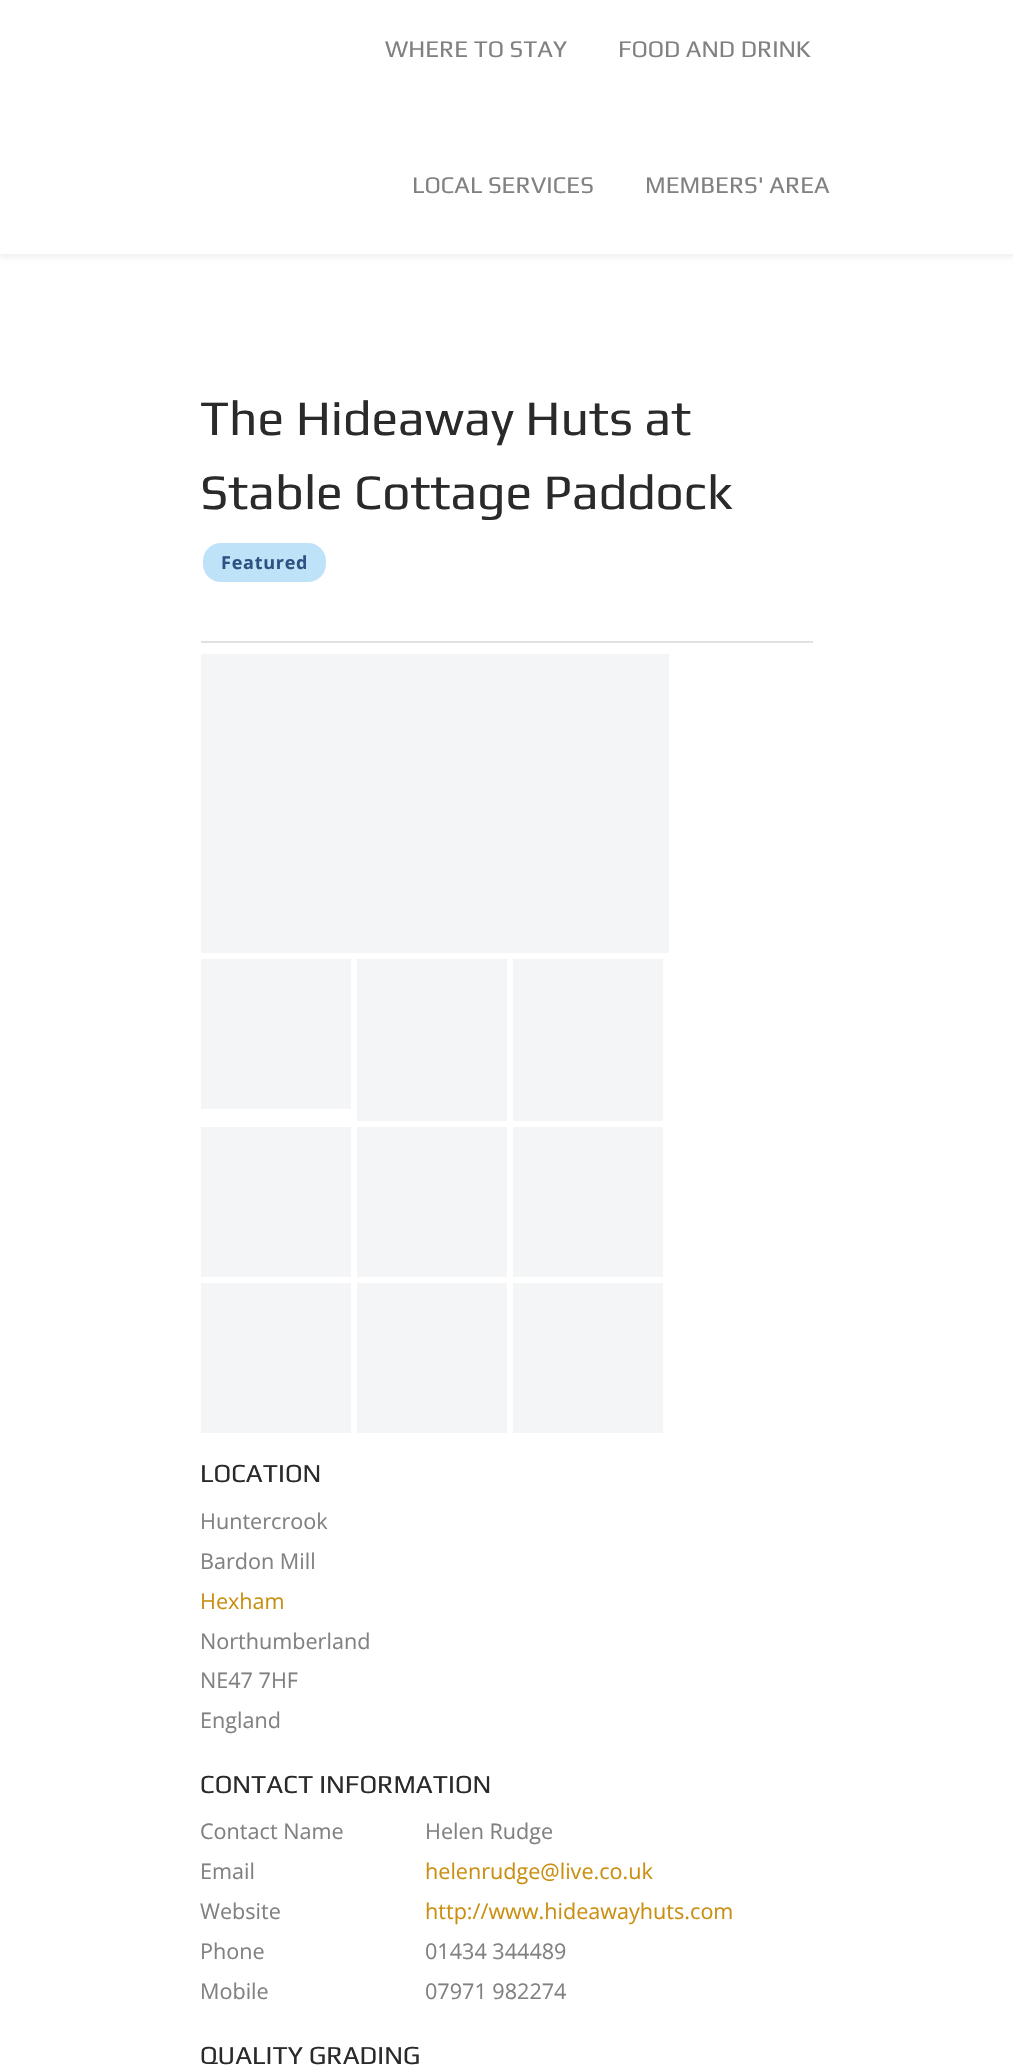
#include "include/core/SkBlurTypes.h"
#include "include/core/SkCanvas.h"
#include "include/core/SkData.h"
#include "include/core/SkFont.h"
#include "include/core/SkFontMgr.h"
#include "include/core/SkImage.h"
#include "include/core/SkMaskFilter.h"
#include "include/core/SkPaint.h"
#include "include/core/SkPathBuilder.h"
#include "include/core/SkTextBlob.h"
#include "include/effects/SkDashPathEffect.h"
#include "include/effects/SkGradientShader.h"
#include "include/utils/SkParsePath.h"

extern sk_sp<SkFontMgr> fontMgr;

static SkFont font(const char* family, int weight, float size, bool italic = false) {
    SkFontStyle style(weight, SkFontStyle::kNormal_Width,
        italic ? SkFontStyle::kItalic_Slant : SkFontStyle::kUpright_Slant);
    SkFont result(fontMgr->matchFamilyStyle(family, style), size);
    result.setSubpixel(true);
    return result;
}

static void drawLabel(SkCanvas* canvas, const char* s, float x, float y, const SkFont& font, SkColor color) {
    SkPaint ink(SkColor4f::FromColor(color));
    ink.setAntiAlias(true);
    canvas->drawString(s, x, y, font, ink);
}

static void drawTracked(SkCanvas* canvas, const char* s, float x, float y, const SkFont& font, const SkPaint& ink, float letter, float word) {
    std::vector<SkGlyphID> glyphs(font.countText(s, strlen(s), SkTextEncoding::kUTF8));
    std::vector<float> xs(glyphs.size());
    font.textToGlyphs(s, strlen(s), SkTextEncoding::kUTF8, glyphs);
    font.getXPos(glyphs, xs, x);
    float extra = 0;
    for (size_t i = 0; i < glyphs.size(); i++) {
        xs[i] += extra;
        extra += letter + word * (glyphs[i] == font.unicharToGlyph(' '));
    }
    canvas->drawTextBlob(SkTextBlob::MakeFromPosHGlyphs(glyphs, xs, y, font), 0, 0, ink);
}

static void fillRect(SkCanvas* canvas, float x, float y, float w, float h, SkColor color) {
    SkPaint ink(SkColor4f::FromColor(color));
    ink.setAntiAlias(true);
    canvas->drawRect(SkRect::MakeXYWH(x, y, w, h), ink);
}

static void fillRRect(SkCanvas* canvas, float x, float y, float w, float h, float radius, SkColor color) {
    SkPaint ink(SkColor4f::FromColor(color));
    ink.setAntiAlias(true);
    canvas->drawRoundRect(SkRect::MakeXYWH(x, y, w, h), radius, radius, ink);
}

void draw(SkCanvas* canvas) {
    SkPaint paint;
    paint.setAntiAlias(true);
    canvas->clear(0xFFFFFFFF);
    paint.setColor(0x0D000000);
    paint.setMaskFilter(SkMaskFilter::MakeBlur(kNormal_SkBlurStyle, 2));
    canvas->drawRect(SkRect::MakeXYWH(0, -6, 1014, 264), paint);
    paint.setMaskFilter(nullptr);
    fillRect(canvas, 0, 0, 1013, 254, 0xFFFFFFFF);
    SkFont font1 = font("Play", 400, 24);
    drawLabel(canvas, "WHERE TO STAY", 385, 57, font1, 0xFF818181);
    drawLabel(canvas, "FOOD AND DRINK", 618, 57, font1, 0xFF818181);
    drawLabel(canvas, "LOCAL SERVICES", 412, 193, font1, 0xFF818181);
    drawLabel(canvas, "MEMBERS' AREA", 645, 193, font1, 0xFF818181);
    SkFont font2 = font("Play", 400, 49.75f);
    drawLabel(canvas, "The Hideaway Huts at", 200, 435, font2, 0xFF2A2A2A);
    drawLabel(canvas, "Stable Cottage Paddock", 200, 509, font2, 0xFF2A2A2A);
    fillRRect(canvas, 203, 543, 123, 39, 18, 0xFFBEE3F8);
    SkFont font3 = font("Open Sans", 700, 18);
    paint.setColor(0xFF2C5282);
    drawTracked(canvas, "Featured", 221, 569, font3, paint, 0.75f, 0);
    fillRect(canvas, 201, 641, 612, 2, 0xFFE1E1E1);
    fillRect(canvas, 201, 654, 468, 299, 0xFFF4F5F6);
    fillRect(canvas, 201, 959, 150, 150, 0xFFF4F5F6);
    fillRect(canvas, 357, 959, 150, 162, 0xFFF4F5F6);
    fillRect(canvas, 513, 959, 150, 162, 0xFFF4F5F6);
    fillRect(canvas, 201, 1127, 150, 150, 0xFFF4F5F6);
    fillRect(canvas, 357, 1127, 150, 150, 0xFFF4F5F6);
    fillRect(canvas, 513, 1127, 150, 150, 0xFFF4F5F6);
    fillRect(canvas, 201, 1283, 150, 150, 0xFFF4F5F6);
    fillRect(canvas, 357, 1283, 150, 150, 0xFFF4F5F6);
    fillRect(canvas, 513, 1283, 150, 150, 0xFFF4F5F6);
    SkFont font4 = font("Play", 400, 26);
    drawLabel(canvas, "LOCATION", 200, 1482, font4, 0xFF2A2A2A);
    SkFont font5 = font("Open Sans", 400, 21.6f);
    drawLabel(canvas, "Huntercrook", 200, 1529, font5, 0xFF818181);
    drawLabel(canvas, "Bardon Mill", 200, 1569, font5, 0xFF818181);
    drawLabel(canvas, "Hexham", 200, 1609, font5, 0xFFCA8F11);
    drawLabel(canvas, "Northumberland", 200, 1649, font5, 0xFF818181);
    drawLabel(canvas, "NE47 7HF", 200, 1688, font5, 0xFF818181);
    drawLabel(canvas, "England", 200, 1728, font5, 0xFF818181);
    drawLabel(canvas, "CONTACT INFORMATION", 200, 1793, font4, 0xFF2A2A2A);
    drawLabel(canvas, "Contact Name", 200, 1839, font5, 0xFF818181);
    drawLabel(canvas, "Helen Rudge", 425, 1839, font5, 0xFF818181);
    drawLabel(canvas, "Email", 200, 1879, font5, 0xFF818181);
    drawLabel(canvas, "helenrudge@live.co.uk", 425, 1879, font5, 0xFFCA8F11);
    drawLabel(canvas, "Website", 200, 1919, font5, 0xFF818181);
    drawLabel(canvas, "http://www.hideawayhuts.com", 425, 1919, font5, 0xFFCA8F11);
    drawLabel(canvas, "Phone", 200, 1959, font5, 0xFF818181);
    drawLabel(canvas, "01434 344489", 425, 1959, font5, 0xFF818181);
    drawLabel(canvas, "Mobile", 200, 1999, font5, 0xFF818181);
    drawLabel(canvas, "07971 982274", 425, 1999, font5, 0xFF818181);
    drawLabel(canvas, "QUALITY GRADING", 200, 2064, font4, 0xFF2A2A2A);
}
